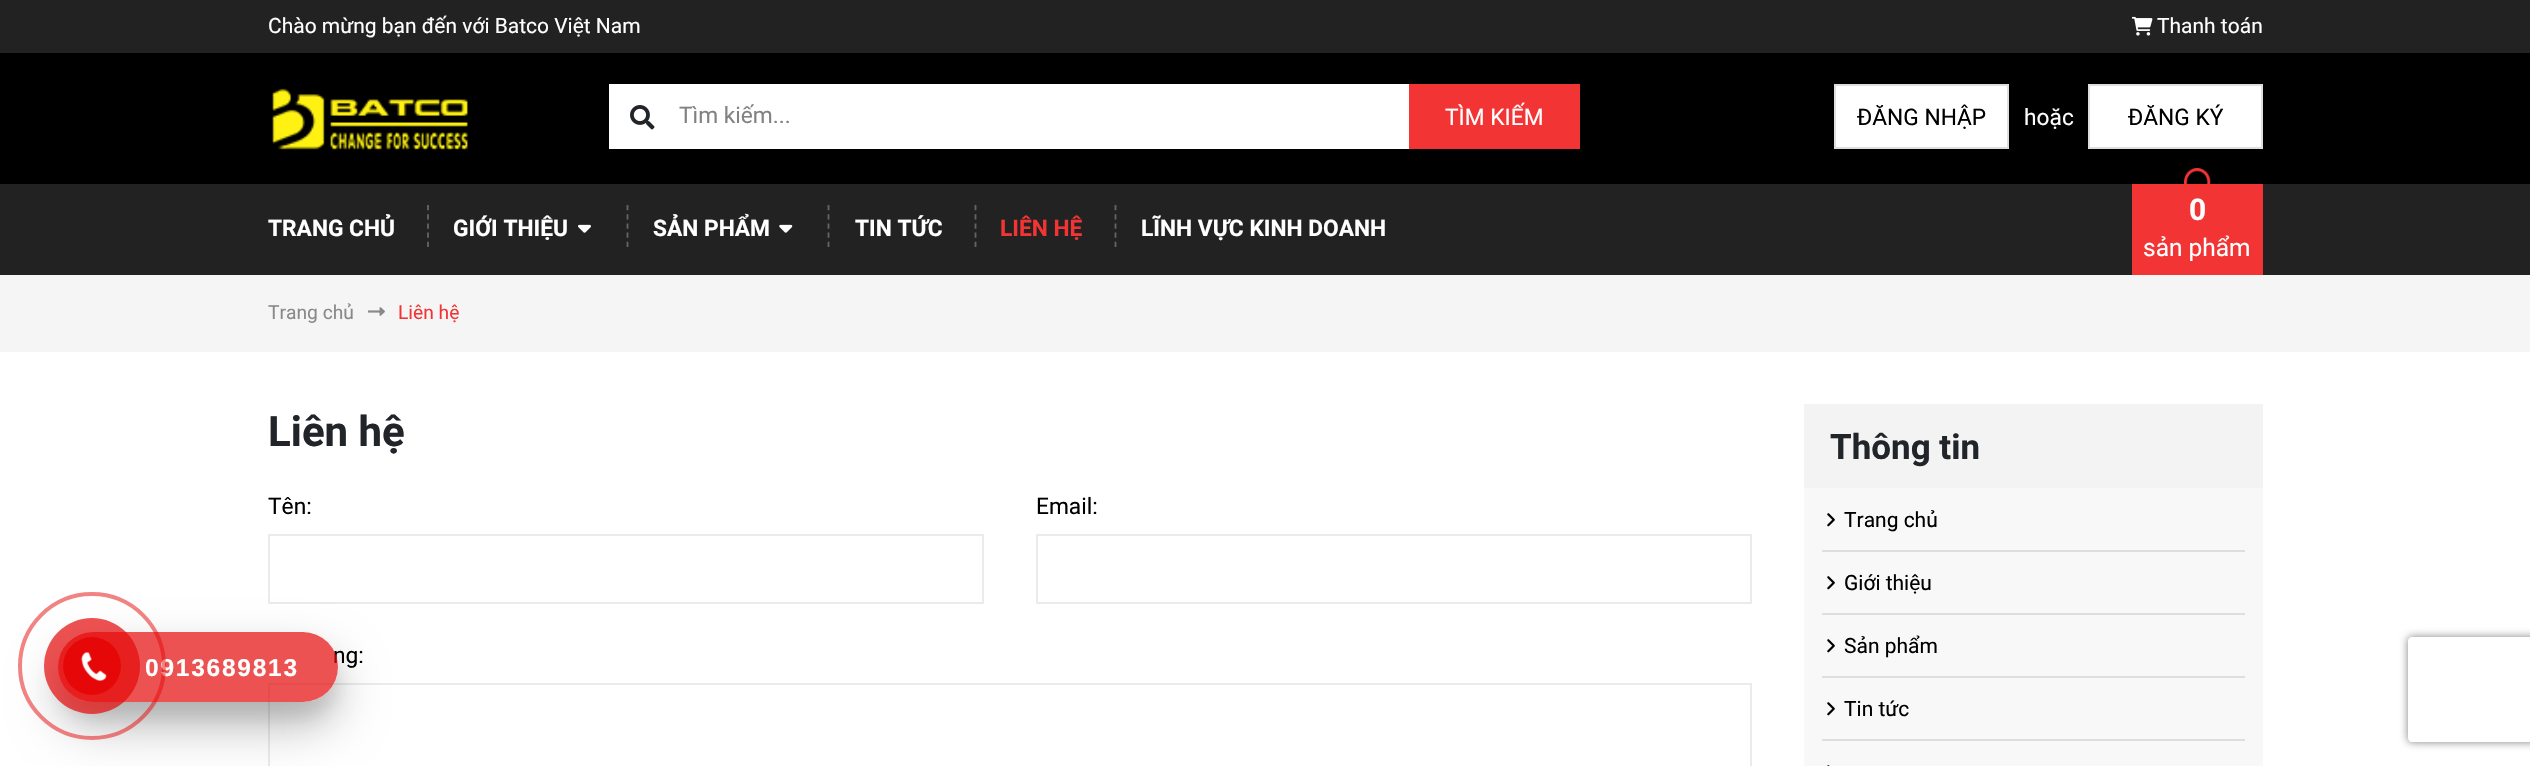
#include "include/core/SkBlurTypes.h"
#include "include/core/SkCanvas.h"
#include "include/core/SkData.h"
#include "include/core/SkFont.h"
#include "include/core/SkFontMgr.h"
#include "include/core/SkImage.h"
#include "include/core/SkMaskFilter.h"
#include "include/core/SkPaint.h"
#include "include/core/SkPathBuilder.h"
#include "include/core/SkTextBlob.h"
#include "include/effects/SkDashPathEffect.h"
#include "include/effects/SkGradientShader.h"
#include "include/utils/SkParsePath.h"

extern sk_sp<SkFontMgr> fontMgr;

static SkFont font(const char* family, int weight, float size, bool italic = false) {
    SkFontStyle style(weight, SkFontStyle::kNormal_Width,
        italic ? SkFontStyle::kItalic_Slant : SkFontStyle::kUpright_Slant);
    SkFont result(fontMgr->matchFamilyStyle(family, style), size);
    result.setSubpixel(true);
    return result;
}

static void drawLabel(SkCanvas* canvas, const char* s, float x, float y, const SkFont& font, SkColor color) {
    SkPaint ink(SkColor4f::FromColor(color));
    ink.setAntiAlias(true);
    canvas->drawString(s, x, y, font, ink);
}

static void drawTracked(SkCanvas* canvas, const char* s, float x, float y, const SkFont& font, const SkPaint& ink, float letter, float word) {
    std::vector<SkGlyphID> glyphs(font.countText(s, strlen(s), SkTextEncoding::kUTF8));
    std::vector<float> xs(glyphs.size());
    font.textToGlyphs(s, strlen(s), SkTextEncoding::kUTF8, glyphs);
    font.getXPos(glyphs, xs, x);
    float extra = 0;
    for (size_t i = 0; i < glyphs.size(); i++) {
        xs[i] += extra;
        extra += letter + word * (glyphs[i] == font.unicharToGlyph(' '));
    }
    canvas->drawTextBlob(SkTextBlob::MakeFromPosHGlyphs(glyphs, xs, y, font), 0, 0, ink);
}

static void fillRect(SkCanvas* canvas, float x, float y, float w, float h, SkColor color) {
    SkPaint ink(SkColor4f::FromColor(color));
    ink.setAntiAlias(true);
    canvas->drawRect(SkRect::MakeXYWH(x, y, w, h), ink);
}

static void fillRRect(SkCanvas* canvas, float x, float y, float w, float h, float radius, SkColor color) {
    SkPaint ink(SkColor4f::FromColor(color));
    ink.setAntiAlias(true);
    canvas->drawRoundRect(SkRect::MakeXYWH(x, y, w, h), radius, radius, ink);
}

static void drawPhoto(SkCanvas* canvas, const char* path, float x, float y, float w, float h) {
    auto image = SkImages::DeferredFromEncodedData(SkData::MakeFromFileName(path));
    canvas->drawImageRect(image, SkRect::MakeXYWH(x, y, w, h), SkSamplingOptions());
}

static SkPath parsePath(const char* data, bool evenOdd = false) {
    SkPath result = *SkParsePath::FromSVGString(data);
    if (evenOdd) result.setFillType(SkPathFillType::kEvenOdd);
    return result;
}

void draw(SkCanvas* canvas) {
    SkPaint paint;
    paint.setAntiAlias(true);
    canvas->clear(0xFFFFFFFF);
    fillRect(canvas, 0, 0, 2530, 53, 0xFF222222);
    SkFont font1 = font("Roboto", 400, 21);
    drawLabel(canvas, "Chào mừng bạn đến với Batco Việt Nam", 268, 33, font1, 0xFFFFFFFF);
    drawPhoto(canvas, "assets/img1.png", 2132, 16, 21, 20);
    drawLabel(canvas, "Thanh toán", 2157, 33, font1, 0xFFFFFFFF);
    fillRect(canvas, 0, 53, 2530, 131, 0xFF000000);
    drawPhoto(canvas, "assets/img2.png", 272, 88, 196, 62);
    fillRect(canvas, 609, 84, 800, 65, 0xFFFFFFFF);
    drawPhoto(canvas, "assets/img3.png", 630, 105, 25, 25);
    SkFont font2 = font("Roboto", 400, 22.75f);
    drawLabel(canvas, "Tìm kiếm...", 679, 123, font2, 0xFF828282);
    fillRect(canvas, 1409, 84, 171, 65, 0xFFF23534);
    drawLabel(canvas, "TÌM KIẾM", 1445, 125, font2, 0xFFFFFFFF);
    paint.setColor(0xFFFFFFFF);
    canvas->drawRect(SkRect::MakeXYWH(1835, 85, 173, 63), paint);
    paint.setStroke(true);
    paint.setStrokeWidth(2);
    paint.setColor(0xFFDEDEDE);
    canvas->drawRect(SkRect::MakeXYWH(1835, 85, 173, 63), paint);
    drawLabel(canvas, "ĐĂNG NHẬP", 1857, 125, font2, 0xFF000000);
    drawLabel(canvas, "hoặc", 2024, 125, font2, 0xFFFFFFFF);
    paint.setStroke(false);
    paint.setColor(0xFFFFFFFF);
    canvas->drawRect(SkRect::MakeXYWH(2089, 85, 173, 63), paint);
    paint.setStroke(true);
    paint.setColor(0xFFDEDEDE);
    canvas->drawRect(SkRect::MakeXYWH(2089, 85, 173, 63), paint);
    drawLabel(canvas, "ĐĂNG KÝ", 2128, 125, font2, 0xFF000000);
    fillRect(canvas, 0, 184, 2530, 91, 0xFF222222);
    SkFont font3 = font("Roboto", 700, 22.75f);
    drawLabel(canvas, "TRANG CHỦ", 268, 236, font3, 0xFFFFFFFF);
    paint.setStrokeWidth(1.8f);
    paint.setColor(0xFF646464);
    paint.setPathEffect(SkDashPathEffect::Make({{5.25f, 3.94f}}, 0));
    canvas->drawPath(parsePath("M428 205V247"), paint);
    paint.setPathEffect(nullptr);
    drawLabel(canvas, "GIỚI THIỆU", 453, 236, font3, 0xFFFFFFFF);
    drawPhoto(canvas, "assets/img4.png", 578, 224, 13, 9);
    paint.setPathEffect(SkDashPathEffect::Make({{5.25f, 3.94f}}, 0));
    canvas->drawPath(parsePath("M627.5 205V247"), paint);
    paint.setPathEffect(nullptr);
    drawLabel(canvas, "SẢN PHẨM", 653, 236, font3, 0xFFFFFFFF);
    drawPhoto(canvas, "assets/img5.png", 779, 224, 14, 9);
    paint.setPathEffect(SkDashPathEffect::Make({{5.25f, 3.94f}}, 0));
    canvas->drawPath(parsePath("M828.5 205V247"), paint);
    paint.setPathEffect(nullptr);
    drawLabel(canvas, "TIN TỨC", 855, 236, font3, 0xFFFFFFFF);
    paint.setPathEffect(SkDashPathEffect::Make({{5.25f, 3.94f}}, 0));
    canvas->drawPath(parsePath("M975.5 205V247"), paint);
    paint.setPathEffect(nullptr);
    drawLabel(canvas, "LIÊN HỆ", 1000, 236, font3, 0xFFF23534);
    paint.setPathEffect(SkDashPathEffect::Make({{5.25f, 3.94f}}, 0));
    canvas->drawPath(parsePath("M1115.5 205V247"), paint);
    paint.setPathEffect(nullptr);
    drawLabel(canvas, "LĨNH VỰC KINH DOANH", 1141, 236, font3, 0xFFFFFFFF);
    fillRect(canvas, 2132, 184, 131, 91, 0xFFF23534);
    drawPhoto(canvas, "assets/img6.png", 2184, 168, 27, 16);
    SkFont font4 = font("Roboto", 700, 30);
    drawLabel(canvas, "0", 2189, 220, font4, 0xFFFFFFFF);
    SkFont font5 = font("Roboto", 400, 24.5f);
    drawLabel(canvas, "sản phẩm", 2143, 256, font5, 0xFFFFFFFF);
    paint.setStrokeWidth(2);
    paint.setColor(0xFFEBEBEB);
    canvas->drawRect(SkRect::MakeXYWH(269, 684, 1482, 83), paint);
    canvas->save();
    canvas->clipPath(parsePath("M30 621H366V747H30ZM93 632H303C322.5 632 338 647.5 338 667C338 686.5 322.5 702 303 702H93C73.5 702 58 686.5 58 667C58 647.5 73.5 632 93 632Z", true), true);
    paint.setStroke(false);
    paint.setColor(0x1A000000);
    paint.setMaskFilter(SkMaskFilter::MakeBlur(kNormal_SkBlurStyle, 9));
    canvas->drawRoundRect(SkRect::MakeXYWH(58, 649, 280, 70), 35, 35, paint);
    paint.setMaskFilter(nullptr);
    canvas->restore();
    paint.setStroke(true);
    paint.setColor(0xFFEBEBEB);
    canvas->drawRect(SkRect::MakeXYWH(269, 535, 714, 68), paint);
    canvas->save();
    canvas->clipPath(parsePath("M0 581H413V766H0ZM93 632H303C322.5 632 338 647.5 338 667C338 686.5 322.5 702 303 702H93C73.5 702 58 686.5 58 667C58 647.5 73.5 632 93 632Z", true), true);
    paint.setStroke(false);
    paint.setColor(0x40000000);
    paint.setMaskFilter(SkMaskFilter::MakeBlur(kNormal_SkBlurStyle, 24.5f));
    canvas->drawRoundRect(SkRect::MakeXYWH(58, 656, 280, 70), 35, 35, paint);
    paint.setMaskFilter(nullptr);
    canvas->restore();
    drawLabel(canvas, "ng:", 333, 663, font2, 0xFF000000);
    fillRRect(canvas, 58, 632, 280, 70, 35, 0xB3E60808);
    SkFont font6 = font("Liberation Sans", 700, 24.5f);
    paint.setColor(0xFFFFFFFF);
    drawTracked(canvas, "0913689813", 145, 676, font6, paint, 1.75f, 0);
    paint.setStroke(true);
    paint.setStrokeWidth(4);
    paint.setColor(0x80E60808);
    canvas->drawCircle(92, 666, 72, paint);
    paint.setStroke(false);
    paint.setColor(0xB3E60808);
    canvas->drawCircle(92, 666, 48, paint);
    paint.setColor(0xFFE60808);
    canvas->drawCircle(92, 666, 29, paint);
    drawPhoto(canvas, "assets/img7.png", 81, 651, 26, 30);
    fillRect(canvas, 0, 275, 2530, 77, 0xFFF5F5F5);
    SkFont font7 = font("Roboto", 400, 19.25f);
    drawLabel(canvas, "Trang chủ", 268, 319, font7, 0xFF898989);
    drawPhoto(canvas, "assets/img8.png", 368, 307, 17, 9);
    drawLabel(canvas, "Liên hệ", 398, 319, font7, 0xFFF23534);
    SkFont font8 = font("Roboto", 700, 42);
    drawLabel(canvas, "Liên hệ", 268, 446, font8, 0xFF212529);
    drawLabel(canvas, "Tên:", 268, 514, font2, 0xFF000000);
    drawLabel(canvas, "Email:", 1036, 514, font2, 0xFF000000);
    paint.setStroke(true);
    paint.setStrokeWidth(2);
    paint.setColor(0xFFEBEBEB);
    canvas->drawRect(SkRect::MakeXYWH(1037, 535, 714, 68), paint);
    fillRect(canvas, 1804, 404, 459, 84, 0xFFF3F3F3);
    SkFont font9 = font("Roboto", 700, 35);
    drawLabel(canvas, "Thông tin", 1830, 459, font9, 0xFF212529);
    fillRect(canvas, 1804, 488, 459, 278, 0xFFF8F8F8);
    fillRect(canvas, 1822, 550, 423, 2, 0xFFDEDEDE);
    drawPhoto(canvas, "assets/img9.png", 1827, 513, 8, 14);
    drawLabel(canvas, "Trang chủ", 1844, 527, font1, 0xFF000000);
    fillRect(canvas, 1822, 613, 423, 2, 0xFFDEDEDE);
    drawPhoto(canvas, "assets/img9.png", 1827, 576, 8, 14);
    drawLabel(canvas, "Giới thiệu", 1844, 590, font1, 0xFF000000);
    fillRect(canvas, 1822, 676, 423, 2, 0xFFDEDEDE);
    drawPhoto(canvas, "assets/img9.png", 1827, 639, 8, 14);
    drawLabel(canvas, "Sản phẩm", 1844, 653, font1, 0xFF000000);
    fillRect(canvas, 1822, 739, 423, 2, 0xFFDEDEDE);
    drawPhoto(canvas, "assets/img9.png", 1827, 702, 8, 14);
    drawLabel(canvas, "Tin tức", 1844, 716, font1, 0xFF000000);
    drawPhoto(canvas, "assets/img10.png", 1827, 765, 3, 1);
    canvas->save();
    canvas->clipPath(parsePath("M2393 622H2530V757H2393ZM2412 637H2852C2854 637 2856 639 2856 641V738C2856 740 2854 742 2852 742H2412C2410 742 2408 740 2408 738V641C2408 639 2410 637 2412 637Z", true), true);
    paint.setStroke(false);
    paint.setColor(0xFF808080);
    paint.setMaskFilter(SkMaskFilter::MakeBlur(kNormal_SkBlurStyle, 4.5f));
    canvas->drawRoundRect(SkRect::MakeXYWH(2408, 637, 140, 105), 4, 4, paint);
    paint.setMaskFilter(nullptr);
    canvas->restore();
}
